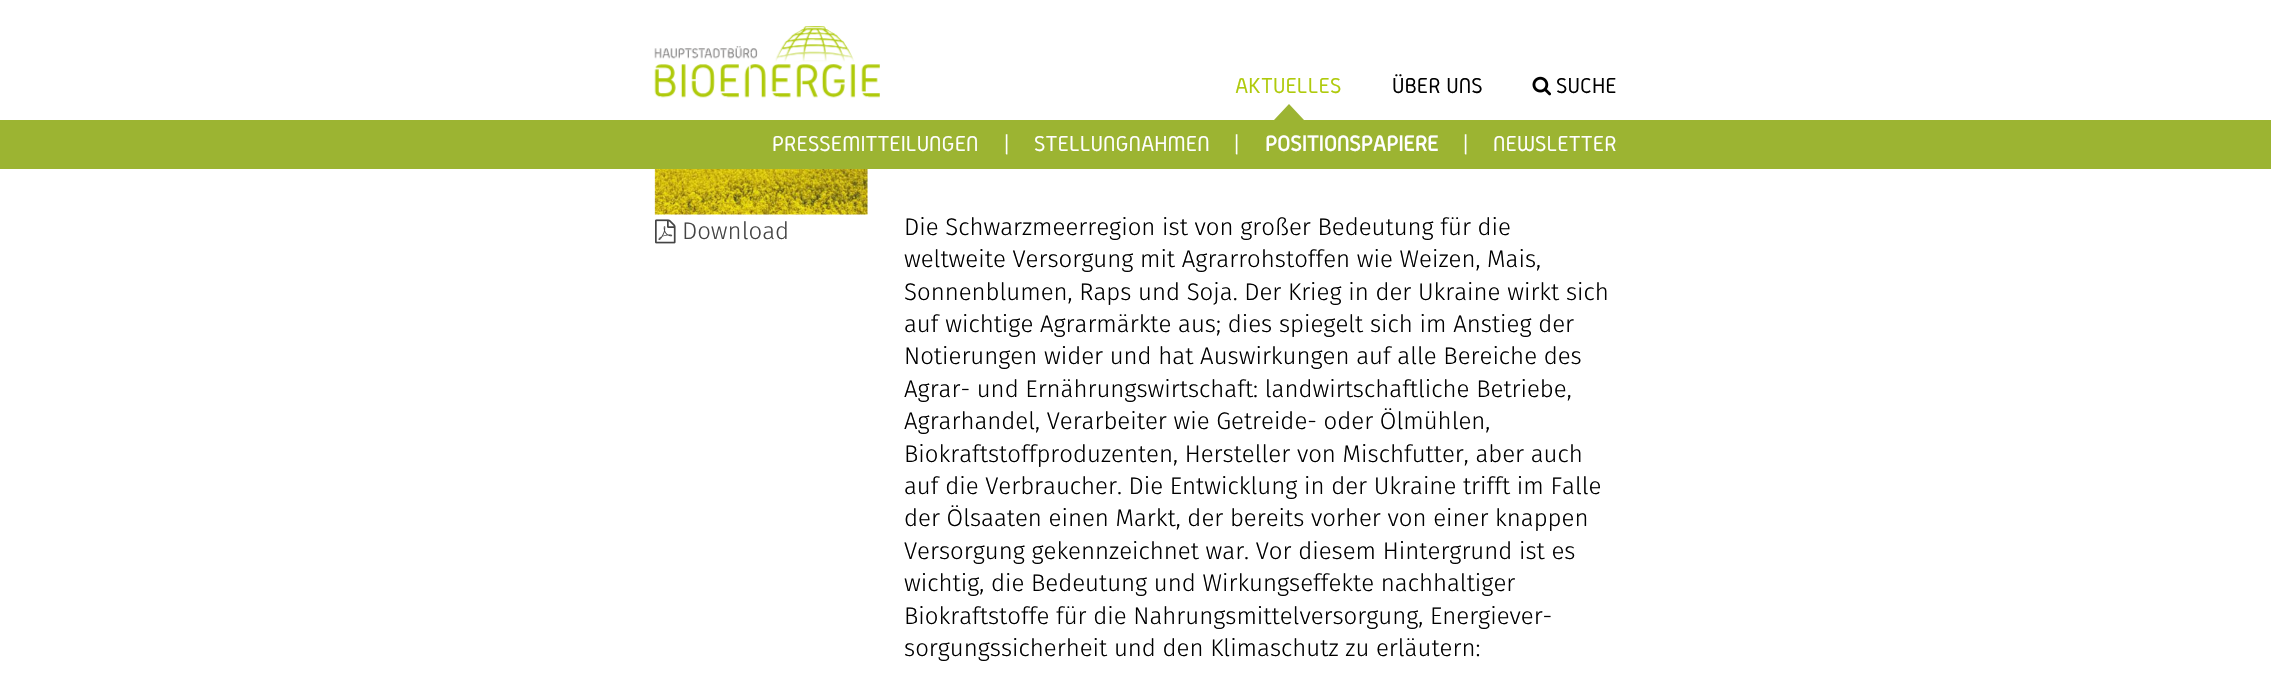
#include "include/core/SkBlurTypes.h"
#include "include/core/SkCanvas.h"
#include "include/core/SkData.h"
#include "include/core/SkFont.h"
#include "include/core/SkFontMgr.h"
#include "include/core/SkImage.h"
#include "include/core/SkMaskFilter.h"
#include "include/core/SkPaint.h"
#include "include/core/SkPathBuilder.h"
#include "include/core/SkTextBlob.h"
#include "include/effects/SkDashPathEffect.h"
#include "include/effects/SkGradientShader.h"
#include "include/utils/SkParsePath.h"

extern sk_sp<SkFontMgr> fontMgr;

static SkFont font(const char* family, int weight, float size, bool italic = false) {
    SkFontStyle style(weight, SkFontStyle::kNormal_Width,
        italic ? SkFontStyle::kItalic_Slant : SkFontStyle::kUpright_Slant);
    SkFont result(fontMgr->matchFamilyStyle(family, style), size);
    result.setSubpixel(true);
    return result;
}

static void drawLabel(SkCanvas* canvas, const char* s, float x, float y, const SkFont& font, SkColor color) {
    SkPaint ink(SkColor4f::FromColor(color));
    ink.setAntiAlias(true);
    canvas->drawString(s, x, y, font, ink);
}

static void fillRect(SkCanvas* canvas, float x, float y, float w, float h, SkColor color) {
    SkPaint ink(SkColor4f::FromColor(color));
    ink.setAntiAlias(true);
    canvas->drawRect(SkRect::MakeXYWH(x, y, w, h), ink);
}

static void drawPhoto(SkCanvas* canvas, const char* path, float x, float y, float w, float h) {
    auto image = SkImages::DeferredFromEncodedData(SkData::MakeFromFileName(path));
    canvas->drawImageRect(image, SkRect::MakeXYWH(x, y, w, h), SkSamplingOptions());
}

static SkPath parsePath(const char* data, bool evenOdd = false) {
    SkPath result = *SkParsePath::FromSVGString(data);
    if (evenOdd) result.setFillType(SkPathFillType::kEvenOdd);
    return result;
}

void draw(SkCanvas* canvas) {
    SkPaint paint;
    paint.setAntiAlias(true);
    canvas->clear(0xFFFFFFFF);
    drawPhoto(canvas, "assets/img1.png", 654, 26, 226, 72);
    SkFont font1 = font("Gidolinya", 400, 22.5f);
    drawLabel(canvas, "ÜBER UNS", 1392, 93, font1, 0xFF000000);
    drawLabel(canvas, "AKTUELLES", 1235, 93, font1, 0xFFAFCA0B);
    paint.setColor(0xFF9CB432);
    canvas->drawPath(parsePath("M1304 120H1274L1289 104Z"), paint);
    fillRect(canvas, 0, 120, 2271, 49, 0xFF9CB432);
    drawLabel(canvas, "PRESSEMITTEILUNGEN", 772, 151, font1, 0xFFFFFFFF);
    drawLabel(canvas, "|", 1004, 151, font1, 0xFFFFFFFF);
    drawLabel(canvas, "STELLUNGNAHMEN", 1034, 151, font1, 0xFFFFFFFF);
    drawLabel(canvas, "|", 1234, 151, font1, 0xFFFFFFFF);
    SkFont font2 = font("Gidolinya", 700, 22.5f);
    drawLabel(canvas, "POSITIONSPAPIERE", 1265, 151, font2, 0xFFFFFFFF);
    drawLabel(canvas, "|", 1463, 151, font1, 0xFFFFFFFF);
    drawLabel(canvas, "NEWSLETTER", 1493, 151, font1, 0xFFFFFFFF);
    drawPhoto(canvas, "assets/img2.png", 1532, 76, 19, 20);
    drawLabel(canvas, "SUCHE", 1556, 93, font1, 0xFF000000);
    drawPhoto(canvas, "assets/img3.png", 654, 169, 214, 46);
    drawPhoto(canvas, "assets/img4.png", 655, 219, 21, 25);
    SkFont font3 = font("Fira Sans", 300, 24);
    drawLabel(canvas, "Download", 682, 239, font3, 0xFF444444);
    drawLabel(canvas, "Die Schwarzmeerregion ist von großer Bedeutung für die", 904, 235, font3, 0xFF000000);
    drawLabel(canvas, "weltweite Versorgung mit Agrarrohstoffen wie Weizen, Mais,", 904, 267, font3, 0xFF000000);
    drawLabel(canvas, "Sonnenblumen, Raps und Soja. Der Krieg in der Ukraine wirkt sich", 904, 300, font3, 0xFF000000);
    drawLabel(canvas, "auf wichtige Agrarmärkte aus; dies spiegelt sich im Anstieg der", 904, 332, font3, 0xFF000000);
    drawLabel(canvas, "Notierungen wider und hat Auswirkungen auf alle Bereiche des", 904, 364, font3, 0xFF000000);
    drawLabel(canvas, "Agrar- und Ernährungswirtschaft: landwirtschaftliche Betriebe,", 904, 397, font3, 0xFF000000);
    drawLabel(canvas, "Agrarhandel, Verarbeiter wie Getreide- oder Ölmühlen,", 904, 429, font3, 0xFF000000);
    drawLabel(canvas, "Biokraftstoffproduzenten, Hersteller von Mischfutter, aber auch", 904, 462, font3, 0xFF000000);
    drawLabel(canvas, "auf die Verbraucher. Die Entwicklung in der Ukraine trifft im Falle", 904, 494, font3, 0xFF000000);
    drawLabel(canvas, "der Ölsaaten einen Markt, der bereits vorher von einer knappen", 904, 526, font3, 0xFF000000);
    drawLabel(canvas, "Versorgung gekennzeichnet war. Vor diesem Hintergrund ist es", 904, 559, font3, 0xFF000000);
    drawLabel(canvas, "wichtig, die Bedeutung und Wirkungseffekte nachhaltiger", 904, 591, font3, 0xFF000000);
    drawLabel(canvas, "Biokraftstoffe für die Nahrungsmittelversorgung, Energiever-", 904, 624, font3, 0xFF000000);
    drawLabel(canvas, "sorgungssicherheit und den Klimaschutz zu erläutern:", 904, 656, font3, 0xFF000000);
}
